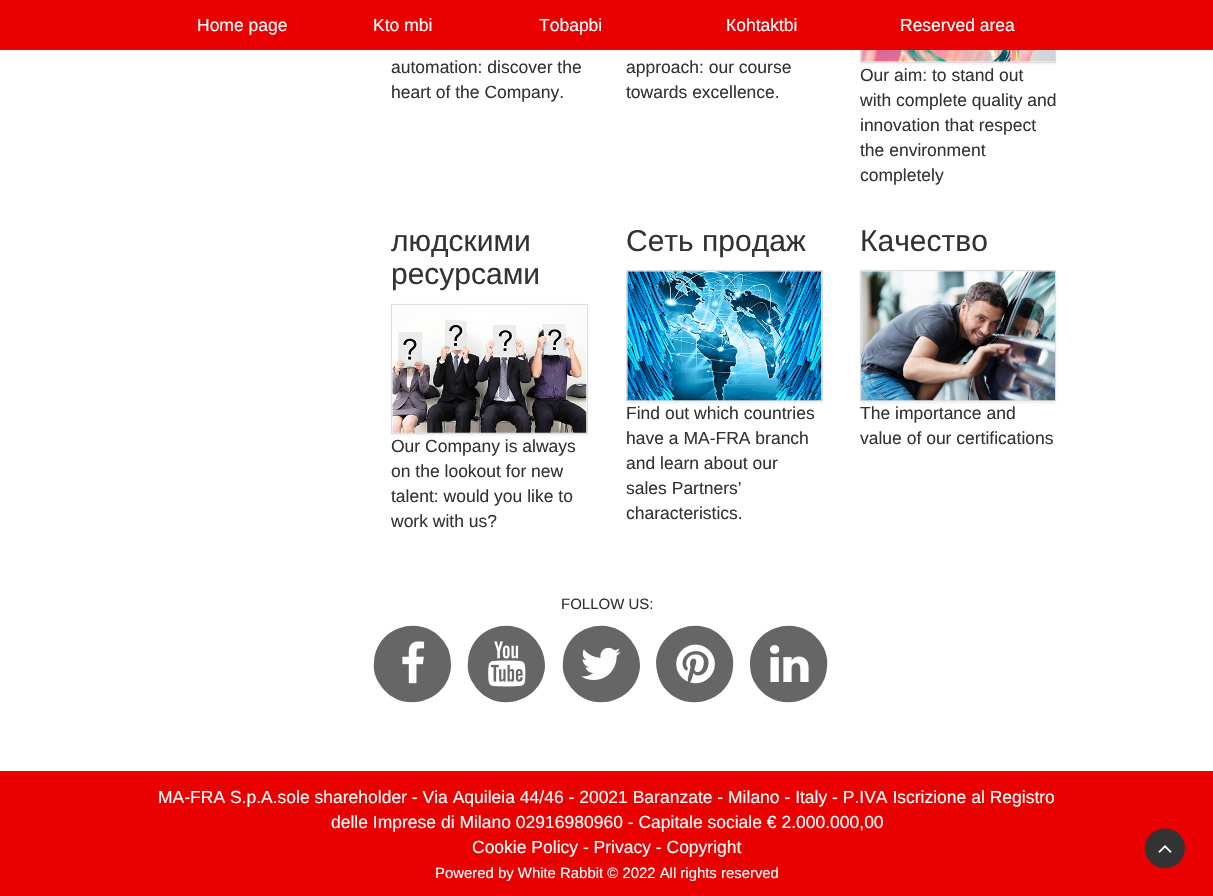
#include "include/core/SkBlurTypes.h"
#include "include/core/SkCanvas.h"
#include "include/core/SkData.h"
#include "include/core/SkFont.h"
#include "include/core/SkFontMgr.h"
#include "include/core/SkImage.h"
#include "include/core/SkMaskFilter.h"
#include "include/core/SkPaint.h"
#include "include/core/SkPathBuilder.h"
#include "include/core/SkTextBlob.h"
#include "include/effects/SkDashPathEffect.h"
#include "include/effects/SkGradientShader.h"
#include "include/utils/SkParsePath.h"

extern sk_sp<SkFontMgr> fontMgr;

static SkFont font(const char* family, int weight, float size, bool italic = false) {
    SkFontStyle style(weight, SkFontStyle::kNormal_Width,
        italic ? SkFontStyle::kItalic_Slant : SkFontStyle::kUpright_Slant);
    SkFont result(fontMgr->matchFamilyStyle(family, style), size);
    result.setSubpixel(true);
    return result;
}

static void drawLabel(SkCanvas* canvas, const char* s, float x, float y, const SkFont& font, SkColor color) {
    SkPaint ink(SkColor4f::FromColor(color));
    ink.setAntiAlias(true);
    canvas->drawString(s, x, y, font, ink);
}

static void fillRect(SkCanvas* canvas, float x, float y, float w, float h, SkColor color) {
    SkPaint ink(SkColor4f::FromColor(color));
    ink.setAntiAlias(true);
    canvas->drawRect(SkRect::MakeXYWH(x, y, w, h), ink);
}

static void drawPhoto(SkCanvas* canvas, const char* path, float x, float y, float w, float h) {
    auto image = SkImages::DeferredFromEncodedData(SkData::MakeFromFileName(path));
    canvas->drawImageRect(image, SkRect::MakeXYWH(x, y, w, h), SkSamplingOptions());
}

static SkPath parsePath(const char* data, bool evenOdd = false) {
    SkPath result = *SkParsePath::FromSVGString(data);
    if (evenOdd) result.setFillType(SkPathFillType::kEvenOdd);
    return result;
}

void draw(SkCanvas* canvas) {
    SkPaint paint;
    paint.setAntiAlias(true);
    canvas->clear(0xFFFFFFFF);
    paint.setColor(0x12000000);
    paint.setMaskFilter(SkMaskFilter::MakeBlur(kNormal_SkBlurStyle, 1));
    canvas->drawRect(SkRect::MakeXYWH(860, -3, 196, 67), paint);
    paint.setMaskFilter(nullptr);
    fillRect(canvas, 861, 50, 194, 12, 0xFFFFFFFF);
    paint.setStroke(true);
    paint.setStrokeWidth(1);
    paint.setColor(0xFFDDDDDD);
    canvas->drawRect(SkRect::MakeXYWH(860.5f, -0.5f, 195, 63), paint);
    fillRect(canvas, 0, 0, 1213, 50, 0xFFEA0000);
    SkFont font1 = font("Liberation Sans", 400, 17.5f);
    drawLabel(canvas, "Home page", 197, 31, font1, 0xFFFFFFFF);
    drawLabel(canvas, "Kto mbi", 373, 31, font1, 0xFFFFFFFF);
    drawLabel(canvas, "Tobapbi", 539, 31, font1, 0xFFFFFFFF);
    drawLabel(canvas, "Кohtaktbi", 726, 31, font1, 0xFFFFFFFF);
    drawLabel(canvas, "Reserved area", 900, 31, font1, 0xFFFFFFFF);
    drawLabel(canvas, "automation: discover the", 391, 73, font1, 0xFF333333);
    drawLabel(canvas, "heart of the Company.", 391, 98, font1, 0xFF333333);
    drawLabel(canvas, "approach: our course", 626, 73, font1, 0xFF333333);
    drawLabel(canvas, "towards excellence.", 626, 98, font1, 0xFF333333);
    drawPhoto(canvas, "assets/img1.png", 861, 50, 194, 12);
    drawLabel(canvas, "Our aim: to stand out", 860, 81, font1, 0xFF333333);
    drawLabel(canvas, "with complete quality and", 860, 106, font1, 0xFF333333);
    drawLabel(canvas, "innovation that respect", 860, 131, font1, 0xFF333333);
    drawLabel(canvas, "the environment", 860, 156, font1, 0xFF333333);
    drawLabel(canvas, "completely", 860, 181, font1, 0xFF333333);
    SkFont font2 = font("Liberation Sans", 400, 30);
    drawLabel(canvas, "людскими", 391, 251, font2, 0xFF333333);
    drawLabel(canvas, "ресурсами", 391, 284, font2, 0xFF333333);
    paint.setStroke(false);
    paint.setColor(0x12000000);
    paint.setMaskFilter(SkMaskFilter::MakeBlur(kNormal_SkBlurStyle, 1));
    canvas->drawRect(SkRect::MakeXYWH(391, 305, 197, 130), paint);
    paint.setMaskFilter(nullptr);
    paint.setColor(0xFFFFFFFF);
    canvas->drawRect(SkRect::MakeXYWH(391.5f, 304.5f, 196, 129), paint);
    paint.setStroke(true);
    paint.setColor(0xFFDDDDDD);
    canvas->drawRect(SkRect::MakeXYWH(391.5f, 304.5f, 196, 129), paint);
    drawPhoto(canvas, "assets/img2.png", 392, 305, 195, 128);
    drawLabel(canvas, "Our Company is always", 391, 452, font1, 0xFF333333);
    drawLabel(canvas, "on the lookout for new", 391, 477, font1, 0xFF333333);
    drawLabel(canvas, "talent: would you like to", 391, 502, font1, 0xFF333333);
    drawLabel(canvas, "work with us?", 391, 527, font1, 0xFF333333);
    drawLabel(canvas, "Сеть продаж", 626, 251, font2, 0xFF333333);
    paint.setStroke(false);
    paint.setColor(0x12000000);
    paint.setMaskFilter(SkMaskFilter::MakeBlur(kNormal_SkBlurStyle, 1));
    canvas->drawRect(SkRect::MakeXYWH(626, 271, 197, 132), paint);
    paint.setMaskFilter(nullptr);
    paint.setColor(0xFFFFFFFF);
    canvas->drawRect(SkRect::MakeXYWH(626.5f, 270.5f, 196, 130), paint);
    paint.setStroke(true);
    paint.setColor(0xFFDDDDDD);
    canvas->drawRect(SkRect::MakeXYWH(626.5f, 270.5f, 196, 130), paint);
    drawPhoto(canvas, "assets/img3.png", 627, 271, 195, 130);
    drawLabel(canvas, "Find out which countries", 626, 419, font1, 0xFF333333);
    drawLabel(canvas, "have a MA-FRA branch", 626, 444, font1, 0xFF333333);
    drawLabel(canvas, "and learn about our", 626, 469, font1, 0xFF333333);
    drawLabel(canvas, "sales Partners’", 626, 494, font1, 0xFF333333);
    drawLabel(canvas, "characteristics.", 626, 519, font1, 0xFF333333);
    drawLabel(canvas, "Качество", 860, 251, font2, 0xFF333333);
    paint.setStroke(false);
    paint.setColor(0x12000000);
    paint.setMaskFilter(SkMaskFilter::MakeBlur(kNormal_SkBlurStyle, 1));
    canvas->drawRect(SkRect::MakeXYWH(860, 271, 196, 132), paint);
    paint.setMaskFilter(nullptr);
    paint.setStroke(true);
    paint.setColor(0xFFDDDDDD);
    canvas->drawRect(SkRect::MakeXYWH(860.5f, 270.5f, 195, 130), paint);
    drawPhoto(canvas, "assets/img4.png", 861, 271, 194, 130);
    drawLabel(canvas, "The importance and", 860, 419, font1, 0xFF333333);
    drawLabel(canvas, "value of our certifications", 860, 444, font1, 0xFF333333);
    SkFont font3 = font("Liberation Sans", 400, 15);
    drawLabel(canvas, "FOLLOW US:", 561, 609, font3, 0xFF333333);
    paint.setStroke(false);
    paint.setColor(0xFF666666);
    canvas->drawPath(parsePath("M446 645C450 651 451 659 451 667C448 704 398 716 379 683C375 677 373 669 374 662C376 624 427 612 446 645Z"), paint);
    drawPhoto(canvas, "assets/img5.png", 402, 641, 23, 43);
    canvas->drawPath(parsePath("M539 645C543 651 545 659 545 667C542 704 492 716 473 683C469 677 467 669 468 662C470 624 520 612 539 645Z"), paint);
    drawPhoto(canvas, "assets/img6.png", 488, 641, 38, 46);
    canvas->drawPath(parsePath("M634 645C638 651 640 659 640 667C637 704 587 716 568 683C564 677 562 669 563 662C565 624 615 612 634 645Z"), paint);
    drawPhoto(canvas, "assets/img7.png", 581, 647, 40, 33);
    canvas->drawPath(parsePath("M728 645C732 651 734 659 733 667C731 704 680 716 661 683C658 677 656 669 656 662C659 624 709 612 728 645Z"), paint);
    drawPhoto(canvas, "assets/img8.png", 676, 644, 39, 40);
    canvas->drawPath(parsePath("M822 645C826 651 828 659 827 667C825 704 774 716 755 683C751 677 750 669 750 662C752 624 803 612 822 645Z"), paint);
    drawPhoto(canvas, "assets/img9.png", 770, 645, 39, 37);
    fillRect(canvas, 0, 771, 1213, 125, 0xFFEA0000);
    drawLabel(canvas, "MA-FRA S.p.A.sole shareholder - Via Aquileia 44/46 - 20021 Baranzate - Milano - Italy - P.IVA Iscrizione al Registro", 158, 803, font1, 0xFFFFFFFF);
    drawLabel(canvas, "delle Imprese di Milano 02916980960 - Capitale sociale € 2.000.000,00", 331, 828, font1, 0xFFFFFFFF);
    drawLabel(canvas, "Cookie Policy - Privacy - Copyright", 472, 853, font1, 0xFFFFFFFF);
    SkFont font4 = font("Liberation Sans", 400, 14.9f);
    drawLabel(canvas, "Powered by White Rabbit © 2022 All rights reserved", 435, 878, font4, 0xFFFFFFFF);
    paint.setColor(0xFF333333);
    canvas->drawPath(parsePath("M1182.5 838.5C1184.5 841.5 1185 845.5 1185 849.5C1183.5 869.5 1157.5 875 1147.5 858.5C1145.5 855 1145 851 1145 847C1146.5 827.5 1172.5 821.5 1182.5 838.5Z"), paint);
    drawPhoto(canvas, "assets/img10.png", 1158, 845, 14, 8);
}
